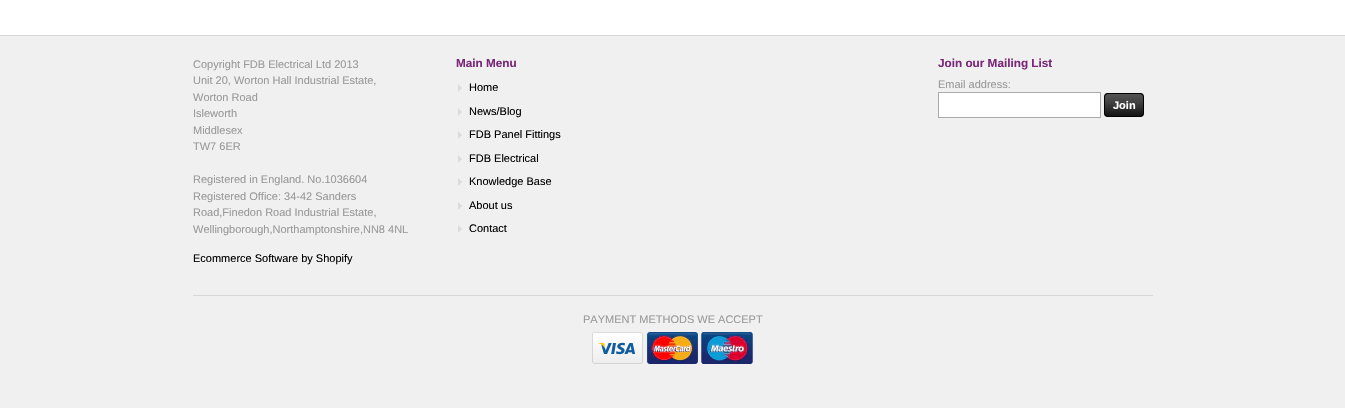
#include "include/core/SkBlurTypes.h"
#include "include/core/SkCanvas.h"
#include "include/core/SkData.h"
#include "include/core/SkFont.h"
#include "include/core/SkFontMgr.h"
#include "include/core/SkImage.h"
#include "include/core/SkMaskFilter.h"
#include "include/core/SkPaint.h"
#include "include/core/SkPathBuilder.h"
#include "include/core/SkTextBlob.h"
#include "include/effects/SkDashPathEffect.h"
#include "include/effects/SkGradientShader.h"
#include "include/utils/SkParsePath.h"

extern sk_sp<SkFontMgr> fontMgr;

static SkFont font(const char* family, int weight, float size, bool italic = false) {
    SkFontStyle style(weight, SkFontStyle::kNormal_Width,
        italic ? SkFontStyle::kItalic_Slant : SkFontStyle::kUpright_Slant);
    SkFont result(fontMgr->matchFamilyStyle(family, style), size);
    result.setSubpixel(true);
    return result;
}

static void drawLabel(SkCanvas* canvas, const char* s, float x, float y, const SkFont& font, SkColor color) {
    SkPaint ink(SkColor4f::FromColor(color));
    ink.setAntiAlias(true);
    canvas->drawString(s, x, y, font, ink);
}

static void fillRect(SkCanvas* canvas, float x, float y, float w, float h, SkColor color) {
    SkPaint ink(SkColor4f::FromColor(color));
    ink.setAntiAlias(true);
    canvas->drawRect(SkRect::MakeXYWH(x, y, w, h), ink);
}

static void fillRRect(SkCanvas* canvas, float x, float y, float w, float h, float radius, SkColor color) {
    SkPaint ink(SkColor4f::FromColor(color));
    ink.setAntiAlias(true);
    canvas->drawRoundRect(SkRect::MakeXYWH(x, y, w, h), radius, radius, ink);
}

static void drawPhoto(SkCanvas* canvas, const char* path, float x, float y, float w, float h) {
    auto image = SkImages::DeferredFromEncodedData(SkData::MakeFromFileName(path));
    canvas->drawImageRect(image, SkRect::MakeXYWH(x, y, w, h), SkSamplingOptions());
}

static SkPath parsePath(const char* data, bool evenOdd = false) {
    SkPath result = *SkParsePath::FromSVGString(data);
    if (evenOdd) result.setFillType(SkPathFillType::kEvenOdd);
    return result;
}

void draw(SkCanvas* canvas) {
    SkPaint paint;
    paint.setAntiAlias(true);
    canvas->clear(0xFFF0F0F0);
    fillRect(canvas, 0, 0, 1345, 35, 0xFFFFFFFF);
    fillRect(canvas, 0, 35, 1345, 1, 0xFFD7D7D7);
    SkFont font1 = font("Liberation Sans", 400, 11);
    drawLabel(canvas, "Copyright FDB Electrical Ltd 2013", 193, 68, font1, 0xFF999999);
    drawLabel(canvas, "Unit 20, Worton Hall Industrial Estate,", 193, 84, font1, 0xFF999999);
    drawLabel(canvas, "Worton Road", 193, 101, font1, 0xFF999999);
    drawLabel(canvas, "Isleworth", 193, 117, font1, 0xFF999999);
    drawLabel(canvas, "Middlesex", 193, 134, font1, 0xFF999999);
    drawLabel(canvas, "TW7 6ER", 193, 150, font1, 0xFF999999);
    drawLabel(canvas, "Registered in England. No.1036604", 193, 183, font1, 0xFF999999);
    drawLabel(canvas, "Registered Office: 34-42 Sanders", 193, 200, font1, 0xFF999999);
    drawLabel(canvas, "Road,Finedon Road Industrial Estate,", 193, 216, font1, 0xFF999999);
    drawLabel(canvas, "Wellingborough,Northamptonshire,NN8 4NL", 193, 233, font1, 0xFF999999);
    drawLabel(canvas, "Ecommerce Software by Shopify", 193, 262, font1, 0xFF000000);
    SkFont font2 = font("Liberation Sans", 700, 11.75f);
    drawLabel(canvas, "Main Menu", 456, 67, font2, 0xFF7A2779);
    paint.setColor(0xFFDBDBDB);
    canvas->drawPath(parsePath("M458 92V84L462 88Z"), paint);
    drawLabel(canvas, "Home", 469, 91, font1, 0xFF000000);
    canvas->drawPath(parsePath("M458 116V108L462 112Z"), paint);
    drawLabel(canvas, "News/Blog", 469, 115, font1, 0xFF000000);
    canvas->drawPath(parsePath("M458 139V131L462 135Z"), paint);
    drawLabel(canvas, "FDB Panel Fittings", 469, 138, font1, 0xFF000000);
    canvas->drawPath(parsePath("M458 163V155L462 159Z"), paint);
    drawLabel(canvas, "FDB Electrical", 469, 162, font1, 0xFF000000);
    canvas->drawPath(parsePath("M458 186V178L462 182Z"), paint);
    drawLabel(canvas, "Knowledge Base", 469, 185, font1, 0xFF000000);
    canvas->drawPath(parsePath("M458 210V202L462 206Z"), paint);
    drawLabel(canvas, "About us", 469, 209, font1, 0xFF000000);
    canvas->drawPath(parsePath("M458 233V225L462 229Z"), paint);
    drawLabel(canvas, "Contact", 469, 232, font1, 0xFF000000);
    drawLabel(canvas, "Join our Mailing List", 938, 67, font2, 0xFF7A2779);
    drawLabel(canvas, "Email address:", 938, 88, font1, 0xFF999999);
    paint.setColor(0xFFFFFFFF);
    canvas->drawRect(SkRect::MakeXYWH(938.5f, 92.5f, 162, 25), paint);
    paint.setStroke(true);
    paint.setStrokeWidth(1);
    paint.setColor(0xFFAAAAAA);
    canvas->drawRect(SkRect::MakeXYWH(938.5f, 92.5f, 162, 25), paint);
    fillRRect(canvas, 1104, 93, 40, 24, 4, 0xFF000000);
    drawPhoto(canvas, "assets/img1.png", 1104, 94, 40, 23);
    paint.setColor(0xFF000000);
    canvas->drawRoundRect(SkRect::MakeXYWH(1104.5f, 93.5f, 39, 23), 3.5f, 3.5f, paint);
    SkFont font3 = font("Liberation Sans", 700, 11);
    drawLabel(canvas, "Join", 1113, 109, font3, 0xFFFFFFFF);
    fillRect(canvas, 193, 295, 960, 1, 0xFFD7D7D7);
    drawLabel(canvas, "PAYMENT METHODS WE ACCEPT", 583, 323, font1, 0xFF999999);
    drawPhoto(canvas, "assets/img2.png", 592, 332, 51, 32);
    drawPhoto(canvas, "assets/img3.png", 647, 332, 51, 32);
    drawPhoto(canvas, "assets/img4.png", 701, 332, 52, 32);
}
